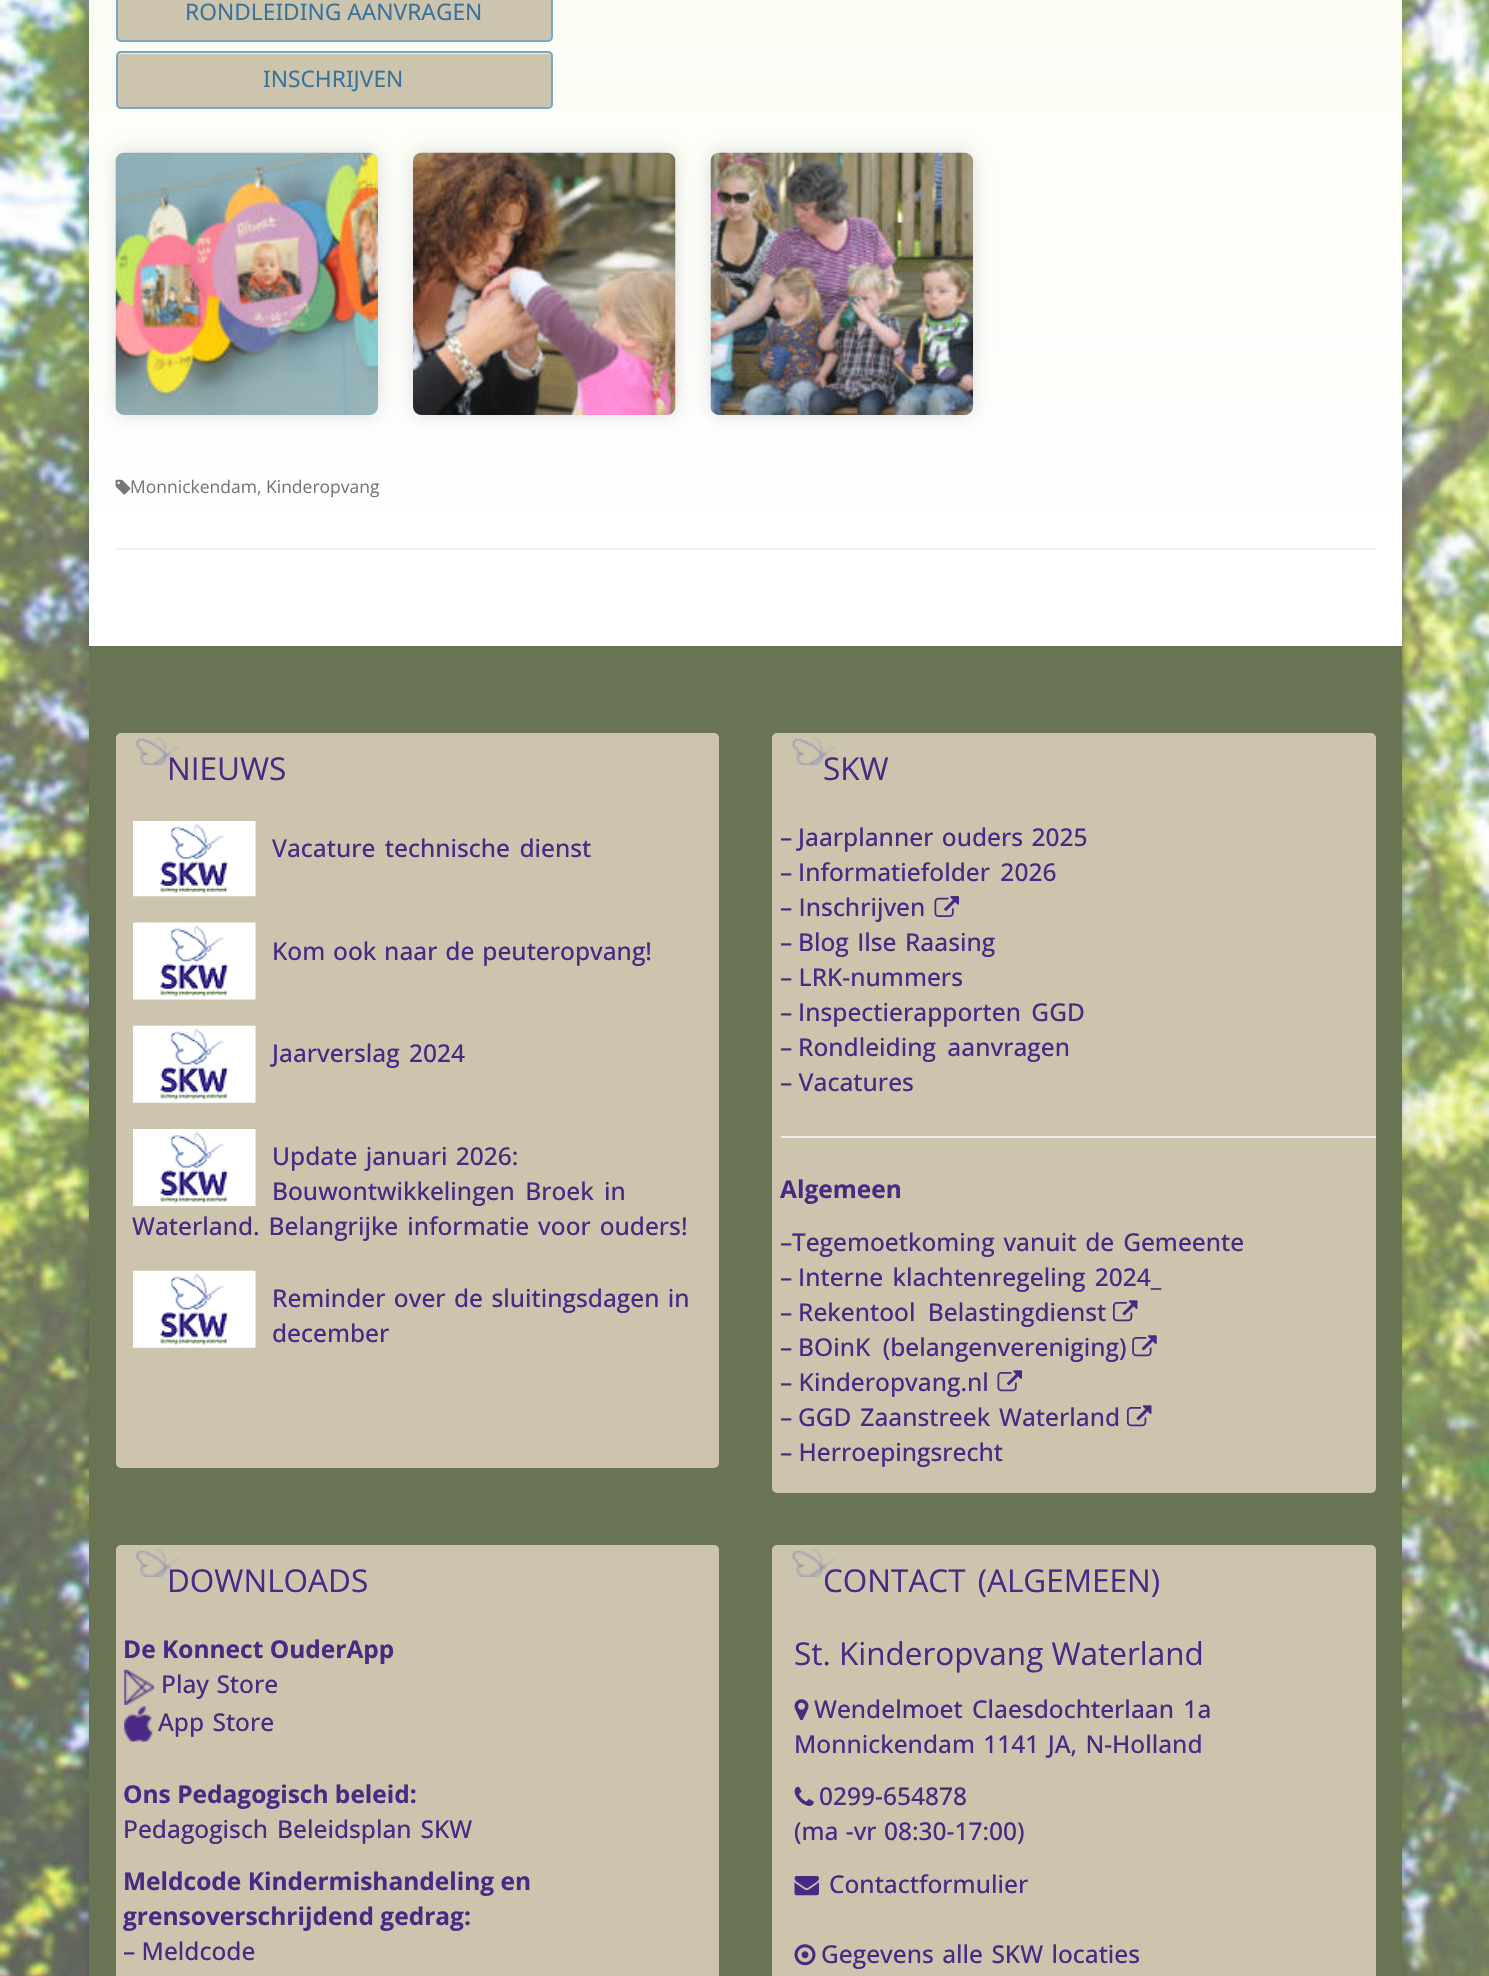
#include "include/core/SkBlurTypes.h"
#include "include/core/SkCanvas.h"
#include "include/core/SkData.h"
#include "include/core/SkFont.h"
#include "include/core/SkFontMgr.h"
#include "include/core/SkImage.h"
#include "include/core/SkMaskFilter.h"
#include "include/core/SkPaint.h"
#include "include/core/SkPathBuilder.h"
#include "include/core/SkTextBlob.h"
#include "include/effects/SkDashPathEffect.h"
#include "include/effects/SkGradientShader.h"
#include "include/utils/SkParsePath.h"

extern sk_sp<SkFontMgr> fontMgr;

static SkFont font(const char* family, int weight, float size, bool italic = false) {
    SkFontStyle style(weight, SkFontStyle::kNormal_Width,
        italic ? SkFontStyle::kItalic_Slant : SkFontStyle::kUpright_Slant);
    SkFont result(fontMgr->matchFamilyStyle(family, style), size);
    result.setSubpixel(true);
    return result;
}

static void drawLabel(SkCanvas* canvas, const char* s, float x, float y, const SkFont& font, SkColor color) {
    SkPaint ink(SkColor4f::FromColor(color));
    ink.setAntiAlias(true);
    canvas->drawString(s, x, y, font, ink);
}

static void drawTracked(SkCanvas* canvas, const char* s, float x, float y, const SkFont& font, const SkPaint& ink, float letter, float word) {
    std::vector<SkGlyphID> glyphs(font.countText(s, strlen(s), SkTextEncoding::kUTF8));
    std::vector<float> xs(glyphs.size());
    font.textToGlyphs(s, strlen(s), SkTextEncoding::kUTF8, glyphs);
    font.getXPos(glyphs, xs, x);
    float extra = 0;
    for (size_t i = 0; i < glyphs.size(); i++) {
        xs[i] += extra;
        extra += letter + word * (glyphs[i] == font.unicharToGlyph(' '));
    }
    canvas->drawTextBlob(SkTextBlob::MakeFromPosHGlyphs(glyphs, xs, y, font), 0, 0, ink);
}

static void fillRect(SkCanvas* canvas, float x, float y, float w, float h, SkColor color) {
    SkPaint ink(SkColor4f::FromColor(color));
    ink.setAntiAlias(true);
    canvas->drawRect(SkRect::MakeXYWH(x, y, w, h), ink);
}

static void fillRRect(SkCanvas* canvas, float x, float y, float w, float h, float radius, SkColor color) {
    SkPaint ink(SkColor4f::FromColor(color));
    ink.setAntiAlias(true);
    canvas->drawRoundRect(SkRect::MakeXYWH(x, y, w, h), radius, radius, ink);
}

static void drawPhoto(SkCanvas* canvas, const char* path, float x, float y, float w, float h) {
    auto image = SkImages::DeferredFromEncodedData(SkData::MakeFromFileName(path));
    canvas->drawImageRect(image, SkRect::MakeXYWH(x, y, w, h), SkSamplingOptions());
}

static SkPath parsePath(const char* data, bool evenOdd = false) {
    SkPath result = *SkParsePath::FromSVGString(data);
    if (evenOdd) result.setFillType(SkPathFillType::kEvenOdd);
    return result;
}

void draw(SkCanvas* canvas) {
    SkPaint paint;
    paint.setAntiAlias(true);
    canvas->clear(0xFFFFFFFF);
    drawPhoto(canvas, "assets/img1.png", 0, 0, 1489, 1976);
    paint.setColor(0x29000000);
    paint.setMaskFilter(SkMaskFilter::MakeBlur(kNormal_SkBlurStyle, 4.5f));
    canvas->drawRect(SkRect::MakeXYWH(88, -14, 1316, 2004), paint);
    paint.setMaskFilter(nullptr);
    fillRect(canvas, 89, 593, 1313, 53, 0xFFFFFFFF);
    {
        const SkColor colors[] = {0xFFF2F9DB, 0xFFFFFFFF};
        const float stops[] = {0, 1};
        const SkPoint ends[] = {{745, -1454}, {746, 593}};
        paint.setShader(SkGradientShader::MakeLinear(ends, colors, stops, 2, SkTileMode::kClamp));
        paint.setAlpha(255);
    }
    canvas->drawRect(SkRect::MakeXYWH(89, 0, 1313, 593), paint);
    paint.setShader(nullptr);
    paint.setColor(0xFFCDC4AD);
    canvas->drawRoundRect(SkRect::MakeXYWH(117, -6, 435, 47), 4, 4, paint);
    paint.setStroke(true);
    paint.setStrokeWidth(2);
    paint.setColor(0xFF7AA7C7);
    canvas->drawRoundRect(SkRect::MakeXYWH(117, -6, 435, 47), 4, 4, paint);
    SkFont font1 = font("Noto Sans", 400, 22.75f);
    drawLabel(canvas, "RONDLEIDING AANVRAGEN", 185, 20, font1, 0xFF39739D);
    fillRRect(canvas, 116, 51, 437, 58, 5, 0xFFCDC4AD);
    paint.setStroke(false);
    paint.setColor(0xFFF0EDE6);
    canvas->drawPath(parsePath("M121 54H548C550 54 551 56 551 58C551 55 550 53 547 53H121L119 54L118 55L117 58C117 56 119 54 121 54Z"), paint);
    paint.setStroke(true);
    paint.setColor(0xFF7AA7C7);
    canvas->drawRoundRect(SkRect::MakeXYWH(117, 52, 435, 56), 4, 4, paint);
    drawLabel(canvas, "INSCHRIJVEN", 263, 87, font1, 0xFF39739D);
    paint.setStroke(false);
    paint.setColor(0xFFDDDDDD);
    paint.setMaskFilter(SkMaskFilter::MakeBlur(kNormal_SkBlurStyle, 9));
    canvas->drawRoundRect(SkRect::MakeXYWH(116, 152, 262, 263), 9, 9, paint);
    paint.setMaskFilter(nullptr);
    drawPhoto(canvas, "assets/img2.png", 115, 152, 263, 263);
    paint.setMaskFilter(SkMaskFilter::MakeBlur(kNormal_SkBlurStyle, 9));
    canvas->drawRoundRect(SkRect::MakeXYWH(413, 152, 263, 263), 9, 9, paint);
    paint.setMaskFilter(nullptr);
    drawPhoto(canvas, "assets/img3.png", 413, 152, 263, 263);
    paint.setMaskFilter(SkMaskFilter::MakeBlur(kNormal_SkBlurStyle, 9));
    canvas->drawRoundRect(SkRect::MakeXYWH(711, 152, 262, 263), 9, 9, paint);
    paint.setMaskFilter(nullptr);
    drawPhoto(canvas, "assets/img4.png", 710, 152, 263, 263);
    fillRect(canvas, 116, 548, 1260, 2, 0xFFF2F2F1);
    drawPhoto(canvas, "assets/img5.png", 115, 479, 16, 16);
    SkFont font2 = font("Open Sans", 400, 17.5f);
    drawLabel(canvas, "Monnickendam, Kinderopvang", 130, 493, font2, 0xFF777777);
    fillRect(canvas, 89, 646, 1313, 1330, 0xFF697452);
    fillRRect(canvas, 116, 733, 603, 735, 5, 0xFFCDC4AD);
    SkFont font3 = font("Open Sans", 400, 31.5f);
    drawLabel(canvas, "NIEUWS", 167, 780, font3, 0xFF4A2985);
    drawPhoto(canvas, "assets/img6.png", 136, 737, 44, 28);
    drawPhoto(canvas, "assets/img7.png", 133, 821, 123, 76);
    SkFont font4 = font("Open Sans", 500, 24.5f);
    paint.setColor(0xFF4A2985);
    drawTracked(canvas, "Vacature technische dienst", 272, 857, font4, paint, 0, 3);
    drawPhoto(canvas, "assets/img8.png", 133, 922, 123, 78);
    drawTracked(canvas, "Kom ook naar de peuteropvang!", 272, 960, font4, paint, 0, 1.5f);
    drawPhoto(canvas, "assets/img9.png", 133, 1025, 123, 78);
    drawTracked(canvas, "Jaarverslag 2024", 272, 1062, font4, paint, 0, 3);
    drawPhoto(canvas, "assets/img10.png", 133, 1129, 123, 77);
    drawTracked(canvas, "Update januari 2026:", 272, 1165, font4, paint, 0, 2);
    drawTracked(canvas, "Bouwontwikkelingen Broek in", 272, 1200, font4, paint, 0, 4);
    drawTracked(canvas, "Waterland. Belangrijke informatie voor ouders!", 132, 1235, font4, paint, 0, 2.5f);
    drawPhoto(canvas, "assets/img9.png", 133, 1270, 123, 78);
    drawTracked(canvas, "Reminder over de sluitingsdagen in", 272, 1307, font4, paint, 0, 2);
    drawLabel(canvas, "december", 272, 1342, font4, 0xFF4A2985);
    fillRRect(canvas, 772, 733, 604, 760, 5, 0xFFCDC4AD);
    drawLabel(canvas, "SKW", 823, 780, font3, 0xFF4A2985);
    drawPhoto(canvas, "assets/img11.png", 792, 737, 45, 28);
    drawLabel(canvas, "–", 780, 846, font4, 0xFF4A2985);
    drawTracked(canvas, "Jaarplanner ouders 2025", 798, 846, font4, paint, 0, 2);
    drawLabel(canvas, "–", 780, 881, font4, 0xFF4A2985);
    drawTracked(canvas, "Informatiefolder 2026", 798, 881, font4, paint, 0, 4);
    drawLabel(canvas, "– Inschrijven", 780, 916, font4, 0xFF4A2985);
    drawPhoto(canvas, "assets/img12.png", 934, 896, 25, 21);
    drawLabel(canvas, "–", 780, 951, font4, 0xFF4A2985);
    drawTracked(canvas, "Blog Ilse Raasing", 798, 951, font4, paint, 0, 2);
    drawLabel(canvas, "– LRK-nummers", 780, 986, font4, 0xFF4A2985);
    drawLabel(canvas, "–", 780, 1021, font4, 0xFF4A2985);
    drawTracked(canvas, "Inspectierapporten GGD", 798, 1021, font4, paint, 0, 4);
    drawLabel(canvas, "–", 780, 1056, font4, 0xFF4A2985);
    drawTracked(canvas, "Rondleiding aanvragen", 798, 1056, font4, paint, 0, 5);
    drawLabel(canvas, "– Vacatures", 780, 1091, font4, 0xFF4A2985);
    fillRect(canvas, 781, 1136, 595, 2, 0xFFEEEEEE);
    SkFont font5 = font("Open Sans", 700, 24.5f);
    drawLabel(canvas, "Algemeen", 780, 1198, font5, 0xFF4A2985);
    drawLabel(canvas, "–", 780, 1251, font4, 0xFF4A2985);
    drawTracked(canvas, "Tegemoetkoming vanuit de Gemeente", 792, 1251, font4, paint, 0, 2.5f);
    drawLabel(canvas, "–", 780, 1286, font4, 0xFF4A2985);
    drawTracked(canvas, "Interne klachtenregeling 2024_", 798, 1286, font4, paint, 0, 3);
    drawLabel(canvas, "–", 780, 1321, font4, 0xFF4A2985);
    drawTracked(canvas, "Rekentool Belastingdienst", 798, 1321, font4, paint, 0, 6);
    drawPhoto(canvas, "assets/img13.png", 1113, 1300, 25, 22);
    drawLabel(canvas, "–", 780, 1356, font4, 0xFF4A2985);
    drawTracked(canvas, "BOinK (belangenvereniging)", 798, 1356, font4, paint, 0, 6);
    drawPhoto(canvas, "assets/img14.png", 1132, 1335, 25, 22);
    drawLabel(canvas, "– Kinderopvang.nl", 780, 1391, font4, 0xFF4A2985);
    drawPhoto(canvas, "assets/img15.png", 997, 1370, 25, 22);
    drawLabel(canvas, "–", 780, 1426, font4, 0xFF4A2985);
    drawTracked(canvas, "GGD Zaanstreek Waterland", 798, 1426, font4, paint, 0, 2.5f);
    drawPhoto(canvas, "assets/img13.png", 1127, 1405, 25, 22);
    drawLabel(canvas, "– Herroepingsrecht", 780, 1461, font4, 0xFF4A2985);
    fillRRect(canvas, 116, 1545, 603, 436, 5, 0xFFCDC4AD);
    drawLabel(canvas, "DOWNLOADS", 167, 1592, font3, 0xFF4A2985);
    drawPhoto(canvas, "assets/img16.png", 136, 1549, 44, 28);
    drawLabel(canvas, "De Konnect OuderApp", 123, 1658, font5, 0xFF4A2985);
    drawPhoto(canvas, "assets/img17.png", 124, 1669, 30, 36);
    drawTracked(canvas, "Play Store", 161, 1693, font4, paint, 0, 1);
    drawPhoto(canvas, "assets/img18.png", 124, 1706, 29, 36);
    drawTracked(canvas, "App Store", 158, 1731, font4, paint, 0, 2);
    drawLabel(canvas, "Ons Pedagogisch beleid:", 123, 1803, font5, 0xFF4A2985);
    drawTracked(canvas, "Pedagogisch Beleidsplan SKW", 123, 1838, font4, paint, 0, 2.5f);
    drawLabel(canvas, "Meldcode Kindermishandeling en", 123, 1890, font5, 0xFF4A2985);
    drawLabel(canvas, "grensoverschrijdend gedrag:", 123, 1925, font5, 0xFF4A2985);
    drawLabel(canvas, "– Meldcode", 123, 1960, font4, 0xFF4A2985);
    fillRRect(canvas, 772, 1545, 604, 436, 5, 0xFFCDC4AD);
    drawTracked(canvas, "CONTACT (ALGEMEEN)", 823, 1592, font3, paint, 0, 4);
    drawPhoto(canvas, "assets/img19.png", 792, 1549, 45, 28);
    drawLabel(canvas, "St. Kinderopvang Waterland", 794, 1665, font3, 0xFF4A2985);
    drawPhoto(canvas, "assets/img20.png", 794, 1699, 15, 22);
    drawTracked(canvas, "Wendelmoet Claesdochterlaan 1a", 814, 1718, font4, paint, 0, 3);
    drawTracked(canvas, "Monnickendam 1141 JA, N-Holland", 794, 1753, font4, paint, 0, 2);
    drawPhoto(canvas, "assets/img21.png", 794, 1786, 20, 20);
    drawLabel(canvas, "0299-654878", 819, 1805, font4, 0xFF4A2985);
    drawTracked(canvas, "(ma -vr 08:30-17:00)", 794, 1840, font4, paint, 0, 1);
    drawPhoto(canvas, "assets/img22.png", 794, 1876, 25, 20);
    drawLabel(canvas, "Contactformulier", 829, 1893, font4, 0xFF4A2985);
    drawPhoto(canvas, "assets/img23.png", 794, 1944, 22, 22);
    drawTracked(canvas, "Gegevens alle SKW locaties", 821, 1963, font4, paint, 0, 2);
}
